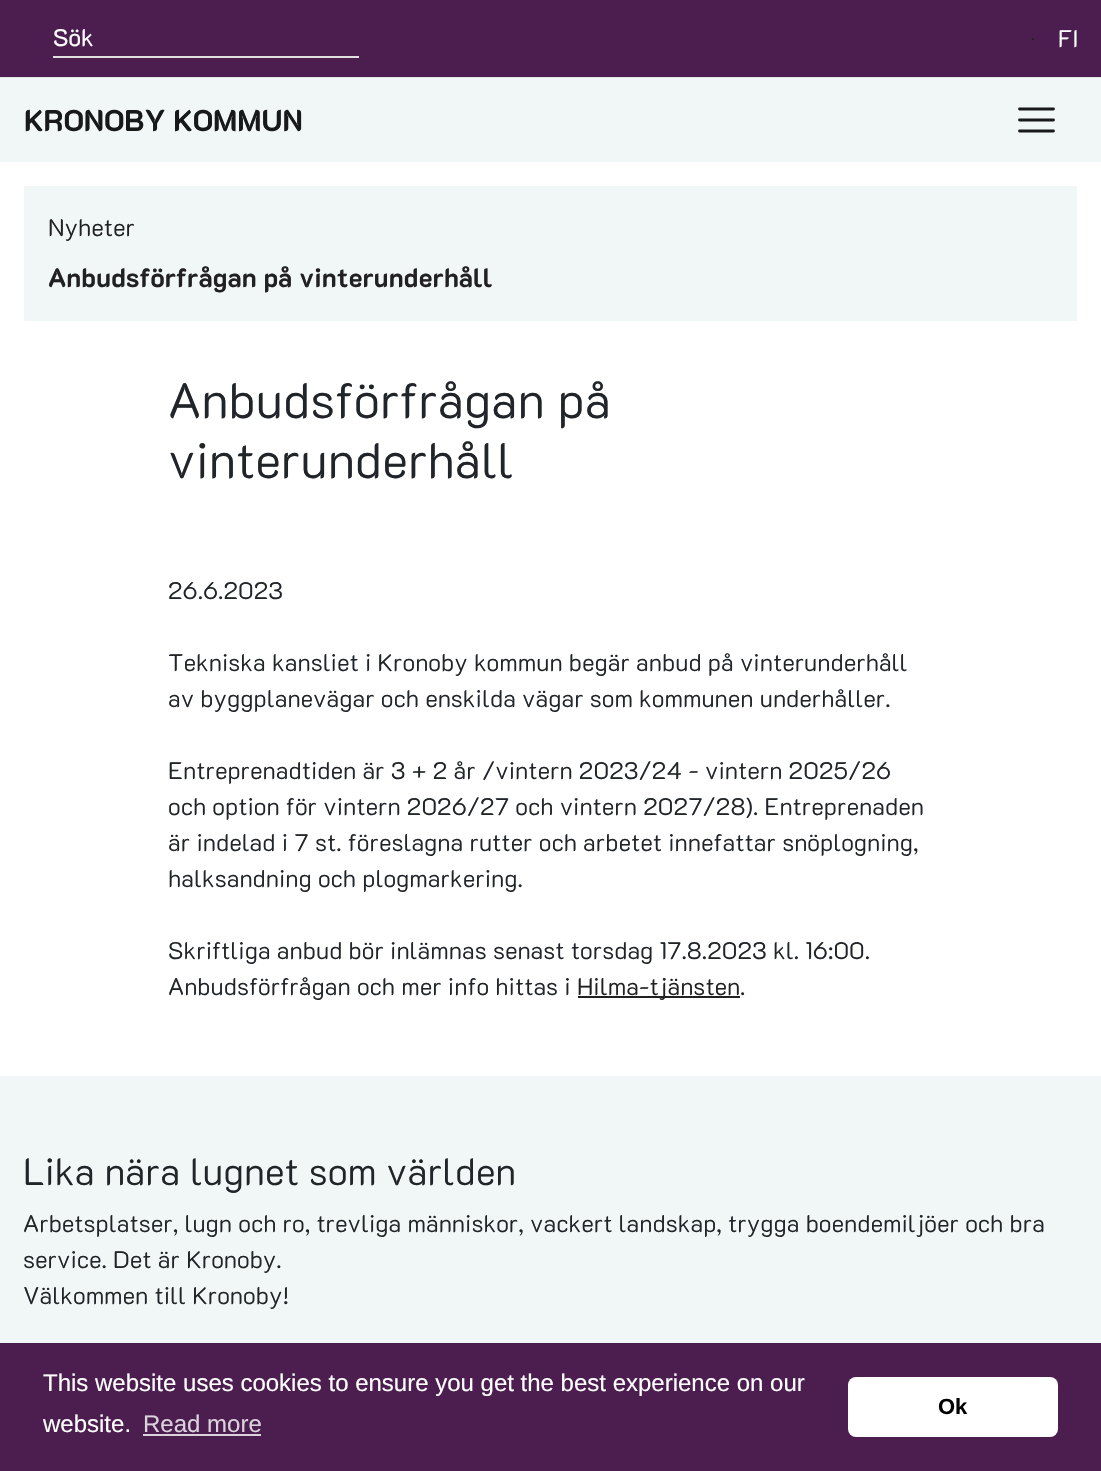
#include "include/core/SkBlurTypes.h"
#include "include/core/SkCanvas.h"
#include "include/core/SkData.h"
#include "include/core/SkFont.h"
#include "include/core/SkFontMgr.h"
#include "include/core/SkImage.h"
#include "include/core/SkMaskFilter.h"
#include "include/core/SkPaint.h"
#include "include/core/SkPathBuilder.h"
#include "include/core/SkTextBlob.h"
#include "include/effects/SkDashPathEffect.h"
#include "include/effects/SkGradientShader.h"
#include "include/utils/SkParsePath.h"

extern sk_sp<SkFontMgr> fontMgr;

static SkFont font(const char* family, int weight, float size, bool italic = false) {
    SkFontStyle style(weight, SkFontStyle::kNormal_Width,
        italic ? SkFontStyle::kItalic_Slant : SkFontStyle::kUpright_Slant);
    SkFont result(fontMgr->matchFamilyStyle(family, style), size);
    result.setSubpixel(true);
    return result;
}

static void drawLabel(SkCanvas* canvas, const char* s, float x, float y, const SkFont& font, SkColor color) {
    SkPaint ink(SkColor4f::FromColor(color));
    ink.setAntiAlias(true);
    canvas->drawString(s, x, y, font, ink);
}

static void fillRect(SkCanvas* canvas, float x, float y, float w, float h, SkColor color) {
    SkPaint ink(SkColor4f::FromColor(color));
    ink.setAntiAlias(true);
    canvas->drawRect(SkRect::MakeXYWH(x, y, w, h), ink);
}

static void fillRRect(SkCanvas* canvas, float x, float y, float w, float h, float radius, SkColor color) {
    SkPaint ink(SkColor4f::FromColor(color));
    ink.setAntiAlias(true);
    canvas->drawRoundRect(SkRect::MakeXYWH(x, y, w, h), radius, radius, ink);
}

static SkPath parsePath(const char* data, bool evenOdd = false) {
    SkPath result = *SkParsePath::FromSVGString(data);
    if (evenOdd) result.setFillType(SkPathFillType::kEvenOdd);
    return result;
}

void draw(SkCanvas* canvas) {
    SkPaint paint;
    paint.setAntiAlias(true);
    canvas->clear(0xFFFFFFFF);
    fillRect(canvas, 0, 0, 1101, 77, 0xFF4B1E4F);
    fillRect(canvas, 53, 56, 306, 2, 0xFFE0E0E0);
    SkFont font1 = font("K2D", 400, 24);
    drawLabel(canvas, "Sök", 53, 46, font1, 0xFFFFFFFF);
    fillRect(canvas, 1032, 38, 2, 2, 0xFF212121);
    SkFont font2 = font("K2D", 300, 24);
    drawLabel(canvas, "FI", 1058, 47, font2, 0xFFFFFFFF);
    fillRect(canvas, 0, 77, 1101, 1, 0xFFE3E6E6);
    fillRect(canvas, 0, 78, 1101, 84, 0xFFF1F6F6);
    SkFont font3 = font("K2D", 700, 30);
    drawLabel(canvas, "KRONOBY KOMMUN", 24, 131, font3, 0xFF181919);
    paint.setStroke(true);
    paint.setStrokeWidth(2.8f);
    paint.setStrokeCap(SkPaint::kRound_Cap);
    paint.setColor(0xFF181919);
    canvas->drawPath(parsePath("M1019.5 109H1053.5M1019.5 120H1053.5M1019.5 131H1053.5"), paint);
    fillRect(canvas, 24, 186, 1053, 135, 0xFFF1F6F6);
    drawLabel(canvas, "Nyheter", 48, 236, font2, 0xFF212121);
    SkFont font4 = font("K2D", 700, 26.4f);
    drawLabel(canvas, "Anbudsförfrågan på vinterunderhåll", 48, 287, font4, 0xFF212121);
    SkFont font5 = font("K2D", 300, 49.5f);
    drawLabel(canvas, "Anbudsförfrågan på", 168, 418, font5, 0xFF212529);
    drawLabel(canvas, "vinterunderhåll", 168, 478, font5, 0xFF212529);
    drawLabel(canvas, "26.6.2023", 168, 599, font2, 0xFF212529);
    drawLabel(canvas, "Tekniska kansliet i Kronoby kommun begär anbud på vinterunderhåll", 168, 671, font2, 0xFF212529);
    drawLabel(canvas, "av byggplanevägar och enskilda vägar som kommunen underhåller.", 168, 707, font2, 0xFF212529);
    drawLabel(canvas, "Entreprenadtiden är 3 + 2 år /vintern 2023/24 - vintern 2025/26", 168, 779, font2, 0xFF212529);
    drawLabel(canvas, "och option för vintern 2026/27 och vintern 2027/28). Entreprenaden", 168, 815, font2, 0xFF212529);
    drawLabel(canvas, "är indelad i 7 st. föreslagna rutter och arbetet innefattar snöplogning,", 168, 851, font2, 0xFF212529);
    drawLabel(canvas, "halksandning och plogmarkering.", 168, 887, font2, 0xFF212529);
    drawLabel(canvas, "Skriftliga anbud bör inlämnas senast torsdag 17.8.2023 kl. 16:00.", 168, 959, font2, 0xFF212529);
    drawLabel(canvas, "Anbudsförfrågan och mer info hittas i", 168, 995, font2, 0xFF212529);
    fillRect(canvas, 578, 996, 162, 2, 0xFF212121);
    drawLabel(canvas, "Hilma-tjänsten", 577, 995, font2, 0xFF212121);
    drawLabel(canvas, ".", 740, 995, font2, 0xFF212529);
    fillRect(canvas, 0, 1076, 1101, 267, 0xFFF1F6F6);
    SkFont font6 = font("K2D", 300, 37.75f);
    drawLabel(canvas, "Lika nära lugnet som världen", 23, 1185, font6, 0xFF212529);
    drawLabel(canvas, "Arbetsplatser, lugn och ro, trevliga människor, vackert landskap, trygga boendemiljöer och bra", 23, 1232, font2, 0xFF212529);
    drawLabel(canvas, "service. Det är Kronoby.", 23, 1268, font2, 0xFF212529);
    drawLabel(canvas, "Välkommen till Kronoby!", 23, 1304, font2, 0xFF212529);
    fillRect(canvas, 0, 1343, 1101, 128, 0xFF4B1E4F);
    SkFont font7 = font("Liberation Sans", 400, 24);
    drawLabel(canvas, "This website uses cookies to ensure you get the best experience on our", 43, 1391, font7, 0xFFFFFFFF);
    drawLabel(canvas, "website.", 43, 1432, font7, 0xFFFFFFFF);
    drawLabel(canvas, "Read more", 143, 1432, font7, 0xFFDBD2DC);
    fillRect(canvas, 143, 1434, 118, 2, 0xFFDBD2DC);
    fillRRect(canvas, 848, 1377, 210, 60, 8, 0xFFFFFFFF);
    SkFont font8 = font("Liberation Sans", 700, 22);
    drawLabel(canvas, "Ok", 938, 1414, font8, 0xFF000000);
}
